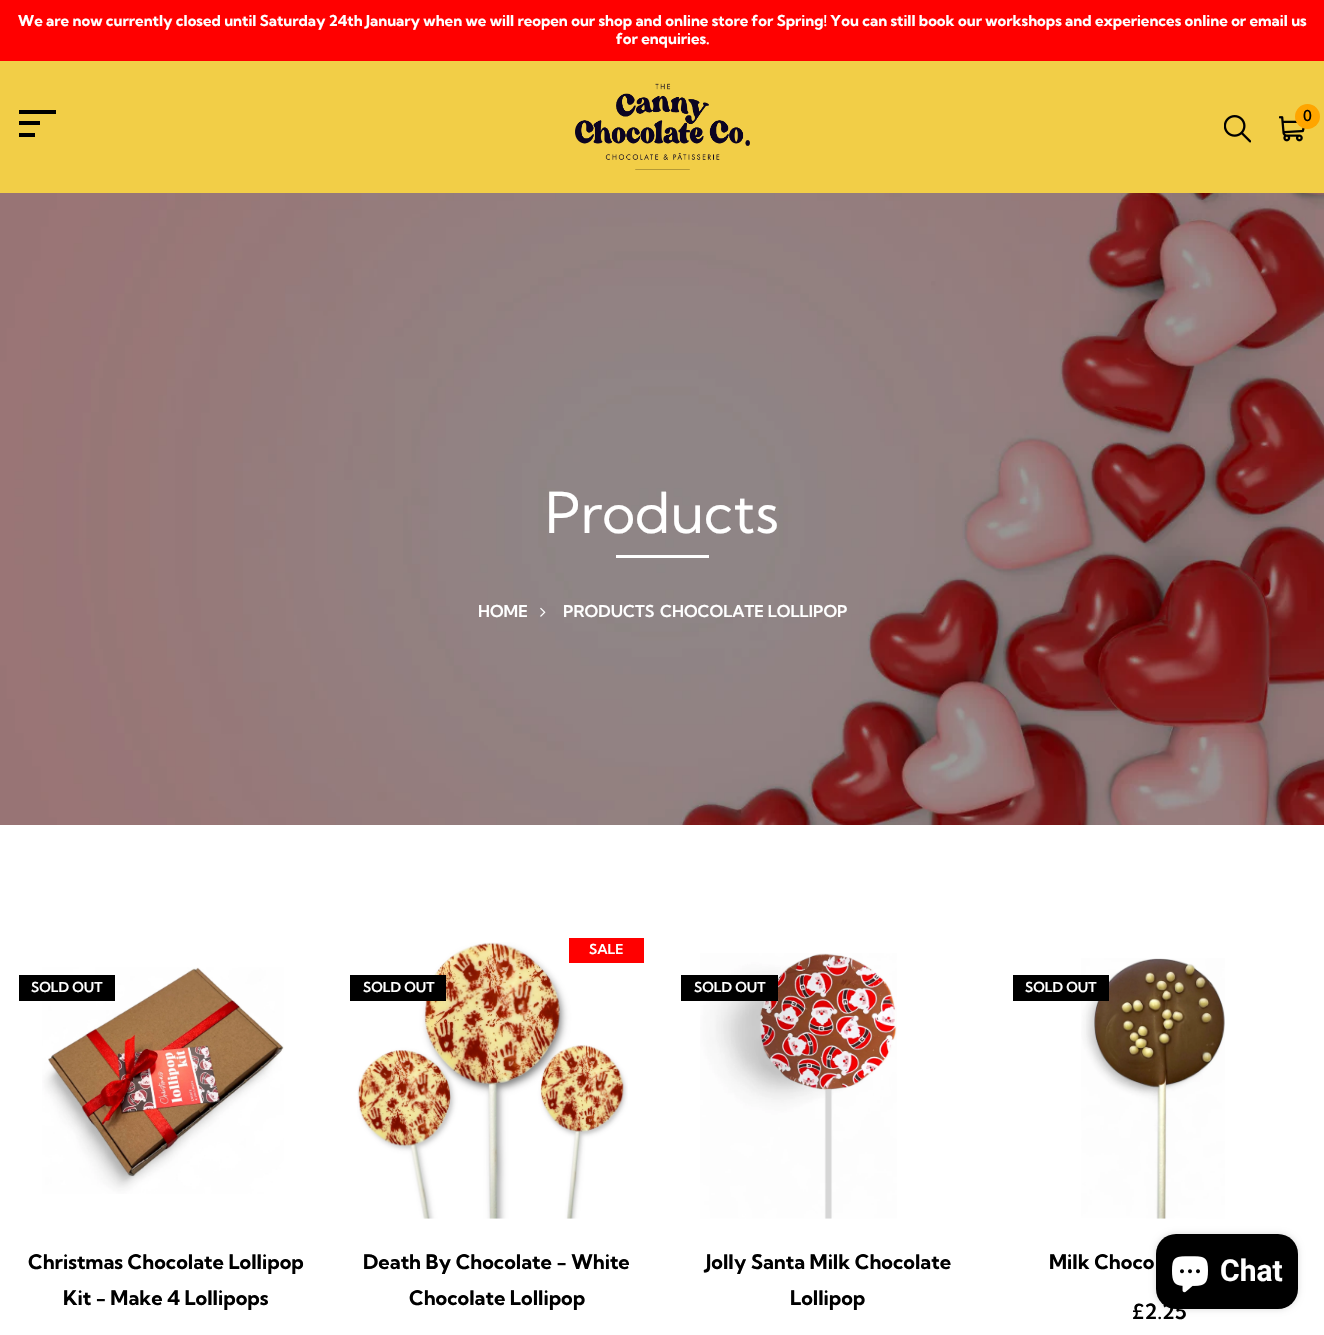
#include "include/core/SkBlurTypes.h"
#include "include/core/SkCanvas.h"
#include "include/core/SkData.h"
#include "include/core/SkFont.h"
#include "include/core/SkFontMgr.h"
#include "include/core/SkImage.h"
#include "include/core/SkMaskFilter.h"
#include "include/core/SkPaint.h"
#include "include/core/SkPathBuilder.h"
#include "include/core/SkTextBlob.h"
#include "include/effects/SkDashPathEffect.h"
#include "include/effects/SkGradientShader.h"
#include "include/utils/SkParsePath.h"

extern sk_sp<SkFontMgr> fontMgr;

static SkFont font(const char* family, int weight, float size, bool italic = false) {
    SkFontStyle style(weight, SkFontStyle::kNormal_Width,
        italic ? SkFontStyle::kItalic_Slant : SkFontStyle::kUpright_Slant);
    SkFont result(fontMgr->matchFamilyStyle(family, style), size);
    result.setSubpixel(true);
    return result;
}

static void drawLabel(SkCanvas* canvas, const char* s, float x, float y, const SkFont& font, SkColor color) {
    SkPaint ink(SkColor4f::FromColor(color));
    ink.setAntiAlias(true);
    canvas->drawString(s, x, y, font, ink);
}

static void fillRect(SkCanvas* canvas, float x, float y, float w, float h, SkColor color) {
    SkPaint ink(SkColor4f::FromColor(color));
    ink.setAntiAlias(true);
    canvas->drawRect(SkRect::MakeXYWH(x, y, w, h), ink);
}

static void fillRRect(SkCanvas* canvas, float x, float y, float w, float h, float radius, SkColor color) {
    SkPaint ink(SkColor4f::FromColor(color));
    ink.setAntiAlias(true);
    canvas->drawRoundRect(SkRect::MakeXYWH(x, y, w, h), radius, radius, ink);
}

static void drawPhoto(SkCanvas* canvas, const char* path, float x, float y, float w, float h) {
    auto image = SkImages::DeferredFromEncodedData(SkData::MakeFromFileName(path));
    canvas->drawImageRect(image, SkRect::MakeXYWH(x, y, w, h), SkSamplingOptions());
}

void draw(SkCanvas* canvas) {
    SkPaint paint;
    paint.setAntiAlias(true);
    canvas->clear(0xFFFFFFFF);
    fillRect(canvas, 0, 0, 1324, 61, 0xFFFF0000);
    SkFont font1 = font("Kumbh Sans", 700, 15);
    drawLabel(canvas, "We are now currently closed until Saturday 24th January when we will reopen our shop and online store for Spring! You can still book our workshops and experiences online or email us", 18, 26, font1, 0xFFFFFFFF);
    drawLabel(canvas, "for enquiries.", 616, 44, font1, 0xFFFFFFFF);
    fillRect(canvas, 0, 61, 1324, 132, 0xFFF2CE47);
    fillRect(canvas, 19, 110, 37, 4, 0xFF000000);
    fillRect(canvas, 19, 121, 21, 4, 0xFF000000);
    fillRect(canvas, 19, 133, 16, 4, 0xFF000000);
    drawPhoto(canvas, "assets/img1.png", 575, 83, 175, 87);
    drawPhoto(canvas, "assets/img2.png", 1224, 115, 27, 28);
    drawPhoto(canvas, "assets/img3.png", 1279, 116, 26, 26);
    paint.setColor(0xFFFFA500);
    canvas->drawCircle(1307.5f, 116.5f, 12.5f, paint);
    SkFont font2 = font("Kumbh Sans", 500, 15);
    drawLabel(canvas, "0", 1303, 121, font2, 0xFF000000);
    drawPhoto(canvas, "assets/img4.png", 0, 193, 1324, 632);
    SkFont font3 = font("Kumbh Sans", 400, 56.25f);
    drawLabel(canvas, "Products", 545, 533, font3, 0xFFFFFFFF);
    fillRect(canvas, 616, 555, 93, 3, 0xFFFFFFFF);
    SkFont font4 = font("Kumbh Sans", 600, 16.25f);
    drawLabel(canvas, "HOME", 478, 617, font4, 0xFFFFFFFF);
    drawPhoto(canvas, "assets/img5.png", 540, 607, 6, 10);
    drawLabel(canvas, "PRODUCTS", 563, 617, font4, 0xFFFFFFFF);
    drawLabel(canvas, "CHOCOLATE LOLLIPOP", 660, 617, font4, 0xFFFFFFFF);
    drawPhoto(canvas, "assets/img6.png", 42, 967, 242, 227);
    fillRect(canvas, 19, 975, 96, 26, 0xFF000000);
    SkFont font5 = font("Kumbh Sans", 600, 13.75f);
    drawLabel(canvas, "SOLD OUT", 31, 992, font5, 0xFFFFFFFF);
    SkFont font6 = font("Kumbh Sans", 700, 20);
    drawLabel(canvas, "Christmas Chocolate Lollipop", 28, 1269, font6, 0xFF000000);
    drawLabel(canvas, "Kit - Make 4 Lollipops", 63, 1305, font6, 0xFF000000);
    drawPhoto(canvas, "assets/img7.png", 357, 942, 271, 277);
    fillRect(canvas, 569, 938, 75, 25, 0xFFFF0000);
    drawLabel(canvas, "SALE", 589, 954, font5, 0xFFFFFFFF);
    fillRect(canvas, 350, 975, 96, 26, 0xFF000000);
    drawLabel(canvas, "SOLD OUT", 363, 992, font5, 0xFFFFFFFF);
    drawLabel(canvas, "Death By Chocolate - White", 363, 1269, font6, 0xFF000000);
    drawLabel(canvas, "Chocolate Lollipop", 409, 1305, font6, 0xFF000000);
    drawPhoto(canvas, "assets/img8.png", 700, 953, 197, 266);
    fillRect(canvas, 681, 975, 97, 26, 0xFF000000);
    drawLabel(canvas, "SOLD OUT", 694, 992, font5, 0xFFFFFFFF);
    drawLabel(canvas, "Jolly Santa Milk Chocolate", 706, 1269, font6, 0xFF000000);
    drawLabel(canvas, "Lollipop", 790, 1305, font6, 0xFF000000);
    drawPhoto(canvas, "assets/img9.png", 1081, 958, 144, 261);
    fillRect(canvas, 1013, 975, 96, 26, 0xFF000000);
    drawLabel(canvas, "SOLD OUT", 1025, 992, font5, 0xFFFFFFFF);
    drawLabel(canvas, "Milk Choco", 1049, 1269, font6, 0xFF000000);
    SkFont font7 = font("Kumbh Sans", 600, 21);
    drawLabel(canvas, "£2.25", 1132, 1319, font7, 0xFF000000);
    paint.setColor(0x26000000);
    paint.setMaskFilter(SkMaskFilter::MakeBlur(kNormal_SkBlurStyle, 3));
    canvas->drawRoundRect(SkRect::MakeXYWH(1156, 1234, 142, 75), 20, 20, paint);
    paint.setMaskFilter(nullptr);
    fillRRect(canvas, 1156, 1234, 142, 75, 20, 0xFF000000);
    drawPhoto(canvas, "assets/img10.png", 1172, 1256, 36, 37);
    SkFont font8 = font("Roboto", 700, 30);
    drawLabel(canvas, "Chat", 1220, 1281, font8, 0xFFFFFFFF);
}
